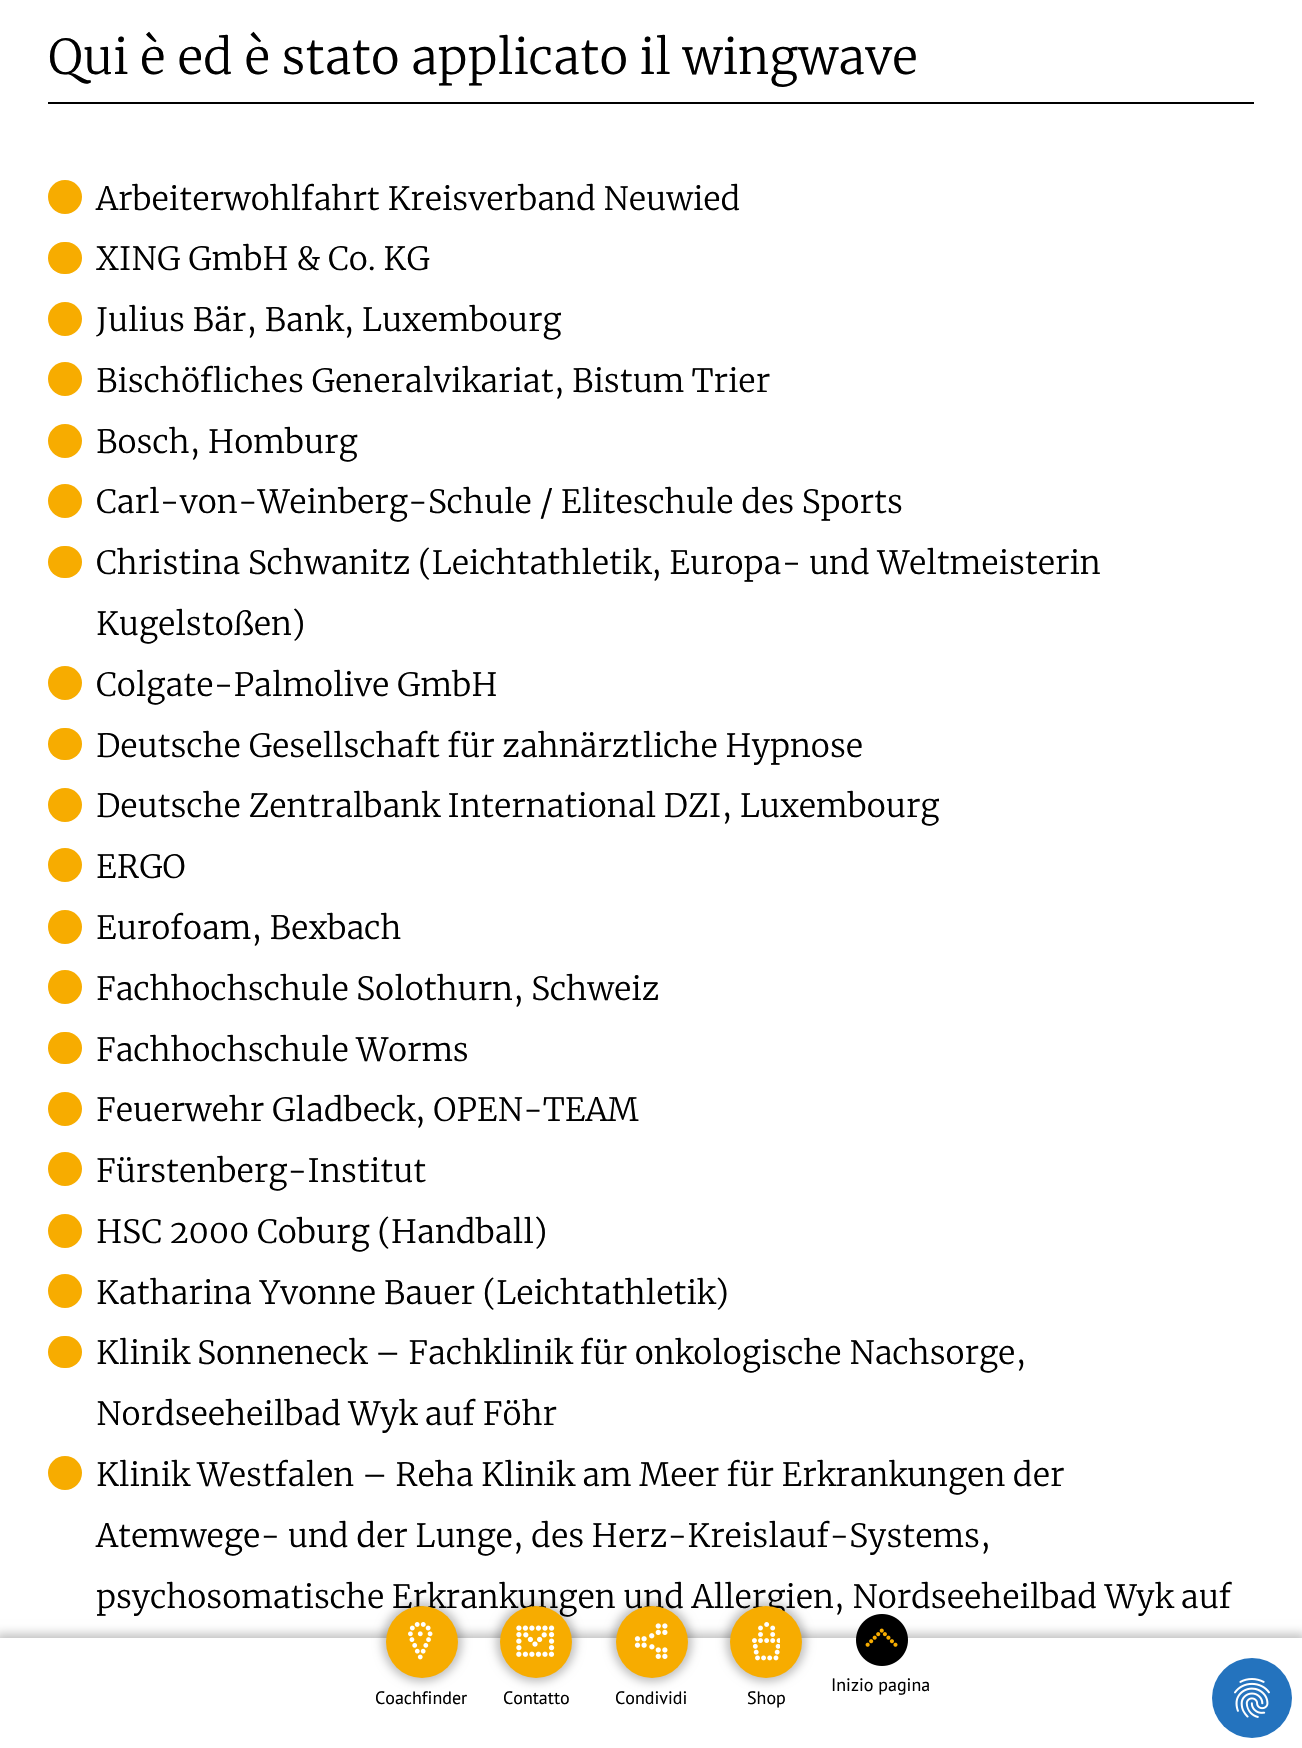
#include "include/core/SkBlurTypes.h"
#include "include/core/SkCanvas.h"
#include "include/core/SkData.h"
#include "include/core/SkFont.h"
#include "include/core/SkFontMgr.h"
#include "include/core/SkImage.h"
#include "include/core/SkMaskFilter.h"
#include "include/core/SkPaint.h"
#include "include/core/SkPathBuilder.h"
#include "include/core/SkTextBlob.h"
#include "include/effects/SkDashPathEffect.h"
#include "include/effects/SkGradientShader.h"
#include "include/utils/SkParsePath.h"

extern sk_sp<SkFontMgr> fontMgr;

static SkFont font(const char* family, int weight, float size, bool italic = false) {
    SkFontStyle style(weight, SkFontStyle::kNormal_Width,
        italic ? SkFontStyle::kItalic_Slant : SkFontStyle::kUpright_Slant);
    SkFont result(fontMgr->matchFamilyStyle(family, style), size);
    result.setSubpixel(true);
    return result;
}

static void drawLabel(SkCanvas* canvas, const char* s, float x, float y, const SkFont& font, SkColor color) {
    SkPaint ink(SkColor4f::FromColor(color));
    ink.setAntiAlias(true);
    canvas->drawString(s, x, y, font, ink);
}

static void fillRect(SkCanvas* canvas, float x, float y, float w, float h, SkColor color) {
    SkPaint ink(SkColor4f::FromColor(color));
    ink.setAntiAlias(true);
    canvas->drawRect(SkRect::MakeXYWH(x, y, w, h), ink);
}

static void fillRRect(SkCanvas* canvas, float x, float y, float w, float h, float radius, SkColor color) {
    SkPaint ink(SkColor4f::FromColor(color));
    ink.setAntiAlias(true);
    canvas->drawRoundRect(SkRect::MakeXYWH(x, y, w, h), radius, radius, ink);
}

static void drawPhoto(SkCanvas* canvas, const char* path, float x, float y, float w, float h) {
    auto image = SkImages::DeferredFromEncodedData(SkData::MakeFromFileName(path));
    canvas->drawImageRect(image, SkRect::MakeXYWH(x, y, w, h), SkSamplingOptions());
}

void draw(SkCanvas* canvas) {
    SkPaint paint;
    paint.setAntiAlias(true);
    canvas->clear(0xFFFFFFFF);
    SkFont font1 = font("Merriweather", 300, 48);
    drawLabel(canvas, "Qui è ed è stato applicato il wingwave", 48, 74, font1, 0xFF000000);
    fillRect(canvas, 48, 102, 1206, 2, 0xFF000000);
    paint.setColor(0xFFF7AC00);
    canvas->drawCircle(65, 197, 17, paint);
    SkFont font2 = font("Merriweather", 300, 32);
    drawLabel(canvas, "Arbeiterwohlfahrt Kreisverband Neuwied", 96, 210, font2, 0xFF000000);
    fillRRect(canvas, 48, 242, 34, 32, 16, 0xFFF7AC00);
    drawLabel(canvas, "XING GmbH & Co. KG", 96, 270, font2, 0xFF000000);
    canvas->drawCircle(65, 319, 17, paint);
    drawLabel(canvas, "Julius Bär, Bank, Luxembourg", 96, 331, font2, 0xFF000000);
    canvas->drawCircle(65, 379, 17, paint);
    drawLabel(canvas, "Bischöfliches Generalvikariat, Bistum Trier", 96, 392, font2, 0xFF000000);
    canvas->drawCircle(65, 441, 17, paint);
    drawLabel(canvas, "Bosch, Homburg", 96, 453, font2, 0xFF000000);
    canvas->drawCircle(65, 501, 17, paint);
    drawLabel(canvas, "Carl-von-Weinberg-Schule / Eliteschule des Sports", 96, 513, font2, 0xFF000000);
    fillRRect(canvas, 48, 546, 34, 32, 16, 0xFFF7AC00);
    drawLabel(canvas, "Christina Schwanitz (Leichtathletik, Europa- und Weltmeisterin", 96, 574, font2, 0xFF000000);
    drawLabel(canvas, "Kugelstoßen)", 96, 635, font2, 0xFF000000);
    canvas->drawCircle(65, 683, 17, paint);
    drawLabel(canvas, "Colgate-Palmolive GmbH", 96, 696, font2, 0xFF000000);
    fillRRect(canvas, 48, 728, 34, 32, 16, 0xFFF7AC00);
    drawLabel(canvas, "Deutsche Gesellschaft für zahnärztliche Hypnose", 96, 757, font2, 0xFF000000);
    canvas->drawCircle(65, 805, 17, paint);
    drawLabel(canvas, "Deutsche Zentralbank International DZI, Luxembourg", 96, 817, font2, 0xFF000000);
    canvas->drawCircle(65, 865, 17, paint);
    drawLabel(canvas, "ERGO", 96, 878, font2, 0xFF000000);
    canvas->drawCircle(65, 927, 17, paint);
    drawLabel(canvas, "Eurofoam, Bexbach", 96, 939, font2, 0xFF000000);
    canvas->drawCircle(65, 987, 17, paint);
    drawLabel(canvas, "Fachhochschule Solothurn, Schweiz", 96, 1000, font2, 0xFF000000);
    fillRRect(canvas, 48, 1032, 34, 32, 16, 0xFFF7AC00);
    drawLabel(canvas, "Fachhochschule Worms", 96, 1061, font2, 0xFF000000);
    canvas->drawCircle(65, 1109, 17, paint);
    drawLabel(canvas, "Feuerwehr Gladbeck, OPEN-TEAM", 96, 1121, font2, 0xFF000000);
    canvas->drawCircle(65, 1169, 17, paint);
    drawLabel(canvas, "Fürstenberg-Institut", 96, 1182, font2, 0xFF000000);
    canvas->drawCircle(65, 1231, 17, paint);
    drawLabel(canvas, "HSC 2000 Coburg (Handball)", 96, 1243, font2, 0xFF000000);
    canvas->drawCircle(65, 1291, 17, paint);
    drawLabel(canvas, "Katharina Yvonne Bauer (Leichtathletik)", 96, 1304, font2, 0xFF000000);
    fillRRect(canvas, 48, 1336, 34, 32, 16, 0xFFF7AC00);
    drawLabel(canvas, "Klinik Sonneneck – Fachklinik für onkologische Nachsorge,", 96, 1364, font2, 0xFF000000);
    drawLabel(canvas, "Nordseeheilbad Wyk auf Föhr", 96, 1425, font2, 0xFF000000);
    canvas->drawCircle(65, 1473, 17, paint);
    drawLabel(canvas, "Klinik Westfalen – Reha Klinik am Meer für Erkrankungen der", 96, 1486, font2, 0xFF000000);
    drawLabel(canvas, "Atemwege- und der Lunge, des Herz-Kreislauf-Systems,", 96, 1547, font2, 0xFF000000);
    drawLabel(canvas, "psychosomatische Erkrankungen und Allergien, Nordseeheilbad Wyk auf", 96, 1608, font2, 0xFF000000);
    paint.setColor(0x40000000);
    paint.setMaskFilter(SkMaskFilter::MakeBlur(kNormal_SkBlurStyle, 5));
    canvas->drawRect(SkRect::MakeXYWH(-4, 1634, 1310, 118), paint);
    paint.setMaskFilter(nullptr);
    fillRect(canvas, 0, 1638, 1302, 110, 0xFFFFFFFF);
    drawPhoto(canvas, "assets/img1.png", 856, 1614, 52, 52);
    SkFont font3 = font("PT Sans", 400, 18);
    drawLabel(canvas, "Inizio pagina", 831, 1691, font3, 0xFF000000);
    paint.setMaskFilter(SkMaskFilter::MakeBlur(kNormal_SkBlurStyle, 5));
    canvas->drawRoundRect(SkRect::MakeXYWH(382, 1602, 80, 80), 40, 40, paint);
    paint.setMaskFilter(nullptr);
    paint.setColor(0xFFF7AC00);
    canvas->drawCircle(422, 1642, 36, paint);
    drawPhoto(canvas, "assets/img2.png", 408, 1622, 25, 38);
    drawLabel(canvas, "Coachfinder", 375, 1704, font3, 0xFF000000);
    paint.setColor(0x40000000);
    paint.setMaskFilter(SkMaskFilter::MakeBlur(kNormal_SkBlurStyle, 5));
    canvas->drawRoundRect(SkRect::MakeXYWH(496, 1602, 80, 80), 40, 40, paint);
    paint.setMaskFilter(nullptr);
    paint.setColor(0xFFF7AC00);
    canvas->drawCircle(536, 1642, 36, paint);
    drawPhoto(canvas, "assets/img3.png", 516, 1625, 39, 32);
    drawLabel(canvas, "Contatto", 503, 1704, font3, 0xFF000000);
    paint.setColor(0x40000000);
    paint.setMaskFilter(SkMaskFilter::MakeBlur(kNormal_SkBlurStyle, 5));
    canvas->drawRoundRect(SkRect::MakeXYWH(612, 1602, 80, 80), 40, 40, paint);
    paint.setMaskFilter(nullptr);
    paint.setColor(0xFFF7AC00);
    canvas->drawCircle(652, 1642, 36, paint);
    drawPhoto(canvas, "assets/img4.png", 634, 1623, 34, 36);
    drawLabel(canvas, "Condividi", 615, 1704, font3, 0xFF000000);
    paint.setColor(0x40000000);
    paint.setMaskFilter(SkMaskFilter::MakeBlur(kNormal_SkBlurStyle, 5));
    canvas->drawRoundRect(SkRect::MakeXYWH(726, 1602, 80, 80), 40, 40, paint);
    paint.setMaskFilter(nullptr);
    paint.setColor(0xFFF7AC00);
    canvas->drawCircle(766, 1642, 36, paint);
    drawPhoto(canvas, "assets/img5.png", 752, 1622, 28, 39);
    drawLabel(canvas, "Shop", 747, 1704, font3, 0xFF000000);
    paint.setColor(0xFF2473BE);
    canvas->drawCircle(1252, 1698, 40, paint);
    drawPhoto(canvas, "assets/img6.png", 1234, 1678, 36, 40);
}
